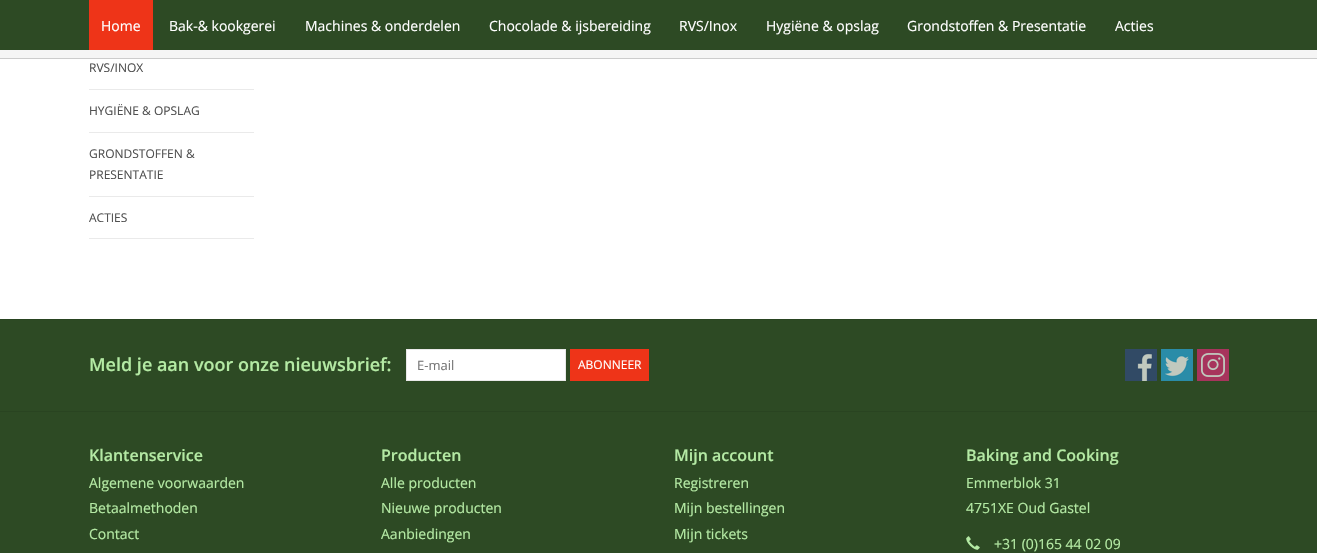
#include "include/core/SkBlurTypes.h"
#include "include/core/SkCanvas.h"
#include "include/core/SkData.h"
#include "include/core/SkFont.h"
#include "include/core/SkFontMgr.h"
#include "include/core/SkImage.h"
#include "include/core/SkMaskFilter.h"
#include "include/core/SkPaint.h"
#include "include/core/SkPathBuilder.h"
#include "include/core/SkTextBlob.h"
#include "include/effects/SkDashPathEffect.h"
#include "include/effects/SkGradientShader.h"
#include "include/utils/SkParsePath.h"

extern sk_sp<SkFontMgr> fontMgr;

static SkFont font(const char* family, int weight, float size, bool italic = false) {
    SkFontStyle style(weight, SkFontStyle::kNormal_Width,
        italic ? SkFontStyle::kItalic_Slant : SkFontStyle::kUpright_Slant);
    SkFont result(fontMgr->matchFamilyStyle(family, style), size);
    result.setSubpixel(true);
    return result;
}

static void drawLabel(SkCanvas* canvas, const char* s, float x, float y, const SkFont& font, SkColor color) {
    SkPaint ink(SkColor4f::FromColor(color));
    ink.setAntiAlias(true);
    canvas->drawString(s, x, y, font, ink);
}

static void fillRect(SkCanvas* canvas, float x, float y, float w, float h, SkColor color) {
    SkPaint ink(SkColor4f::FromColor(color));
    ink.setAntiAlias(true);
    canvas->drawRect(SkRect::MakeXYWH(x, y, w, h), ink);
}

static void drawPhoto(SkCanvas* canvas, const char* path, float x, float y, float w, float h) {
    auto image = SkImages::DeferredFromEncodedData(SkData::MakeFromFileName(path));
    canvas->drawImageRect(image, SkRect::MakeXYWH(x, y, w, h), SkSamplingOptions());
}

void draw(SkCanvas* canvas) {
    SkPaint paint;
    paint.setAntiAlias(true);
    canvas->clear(0xFFFFFFFF);
    fillRect(canvas, 0, 0, 1317, 50, 0xFF2D4A24);
    fillRect(canvas, 89, 0, 64, 50, 0xFFEE3418);
    SkFont font1 = font("Open Sans", 400, 14);
    drawLabel(canvas, "Home", 101, 31, font1, 0xFFFFFFFF);
    drawLabel(canvas, "Bak-& kookgerei", 169, 31, font1, 0xFFFFFFFF);
    drawLabel(canvas, "Machines & onderdelen", 305, 31, font1, 0xFFFFFFFF);
    drawLabel(canvas, "Chocolade & ijsbereiding", 489, 31, font1, 0xFFFFFFFF);
    drawLabel(canvas, "RVS/Inox", 679, 31, font1, 0xFFFFFFFF);
    drawLabel(canvas, "Hygiëne & opslag", 766, 31, font1, 0xFFFFFFFF);
    drawLabel(canvas, "Grondstoffen & Presentatie", 907, 31, font1, 0xFFFFFFFF);
    drawLabel(canvas, "Acties", 1115, 31, font1, 0xFFFFFFFF);
    fillRect(canvas, 0, 50, 1317, 8, 0xFFF5F5F5);
    fillRect(canvas, 0, 58, 1317, 1, 0xFFCCCCCC);
    fillRect(canvas, 89, 89, 165, 1, 0xFFEAEAEA);
    SkFont font2 = font("Open Sans", 400, 12);
    drawLabel(canvas, "RVS/INOX", 89, 72, font2, 0xFF505050);
    fillRect(canvas, 89, 132, 165, 1, 0xFFEAEAEA);
    drawLabel(canvas, "HYGIËNE & OPSLAG", 89, 115, font2, 0xFF505050);
    fillRect(canvas, 89, 196, 165, 1, 0xFFEAEAEA);
    drawLabel(canvas, "GRONDSTOFFEN &", 89, 158, font2, 0xFF505050);
    drawLabel(canvas, "PRESENTATIE", 89, 179, font2, 0xFF505050);
    fillRect(canvas, 89, 238, 165, 1, 0xFFEAEAEA);
    drawLabel(canvas, "ACTIES", 89, 222, font2, 0xFF505050);
    fillRect(canvas, 0, 320, 1317, 233, 0xFF2D4A24);
    fillRect(canvas, 0, 319, 1317, 1, 0xFF294421);
    SkFont font3 = font("Open Sans", 600, 18);
    drawLabel(canvas, "Meld je aan voor onze nieuwsbrief:", 89, 371, font3, 0xFFB4EAA4);
    paint.setColor(0xFFFFFFFF);
    canvas->drawRect(SkRect::MakeXYWH(406.5f, 349.5f, 159, 31), paint);
    paint.setStroke(true);
    paint.setStrokeWidth(1);
    paint.setColor(0xFFE9E9E9);
    canvas->drawRect(SkRect::MakeXYWH(406.5f, 349.5f, 159, 31), paint);
    SkFont font4 = font("Open Sans", 400, 13);
    drawLabel(canvas, "E-mail", 417, 370, font4, 0xFF757575);
    fillRect(canvas, 570, 349, 79, 32, 0xFFEE3418);
    drawLabel(canvas, "ABONNEER", 578, 369, font2, 0xFFFFFFFF);
    drawPhoto(canvas, "assets/img1.png", 1125, 349, 32, 32);
    drawPhoto(canvas, "assets/img2.png", 1161, 349, 32, 32);
    drawPhoto(canvas, "assets/img3.png", 1197, 349, 32, 32);
    fillRect(canvas, 0, 411, 1317, 1, 0xFF294421);
    SkFont font5 = font("Open Sans", 600, 16);
    drawLabel(canvas, "Klantenservice", 89, 461, font5, 0xFFB4EAA4);
    drawLabel(canvas, "Algemene voorwaarden", 89, 488, font1, 0xFFB4EAA4);
    drawLabel(canvas, "Betaalmethoden", 89, 513, font1, 0xFFB4EAA4);
    drawLabel(canvas, "Contact", 89, 539, font1, 0xFFB4EAA4);
    drawLabel(canvas, "Producten", 381, 461, font5, 0xFFB4EAA4);
    drawLabel(canvas, "Alle producten", 381, 488, font1, 0xFFB4EAA4);
    drawLabel(canvas, "Nieuwe producten", 381, 513, font1, 0xFFB4EAA4);
    drawLabel(canvas, "Aanbiedingen", 381, 539, font1, 0xFFB4EAA4);
    drawLabel(canvas, "Mijn account", 674, 461, font5, 0xFFB4EAA4);
    drawLabel(canvas, "Registreren", 674, 488, font1, 0xFFB4EAA4);
    drawLabel(canvas, "Mijn bestellingen", 674, 513, font1, 0xFFB4EAA4);
    drawLabel(canvas, "Mijn tickets", 674, 539, font1, 0xFFB4EAA4);
    drawLabel(canvas, "Baking and Cooking", 966, 461, font5, 0xFFB4EAA4);
    drawLabel(canvas, "Emmerblok 31", 966, 488, font1, 0xFFB4EAA4);
    drawLabel(canvas, "4751XE Oud Gastel", 966, 513, font1, 0xFFB4EAA4);
    drawPhoto(canvas, "assets/img4.png", 966, 536, 14, 14);
    drawLabel(canvas, "+31 (0)165 44 02 09", 994, 549, font1, 0xFFB4EAA4);
}
